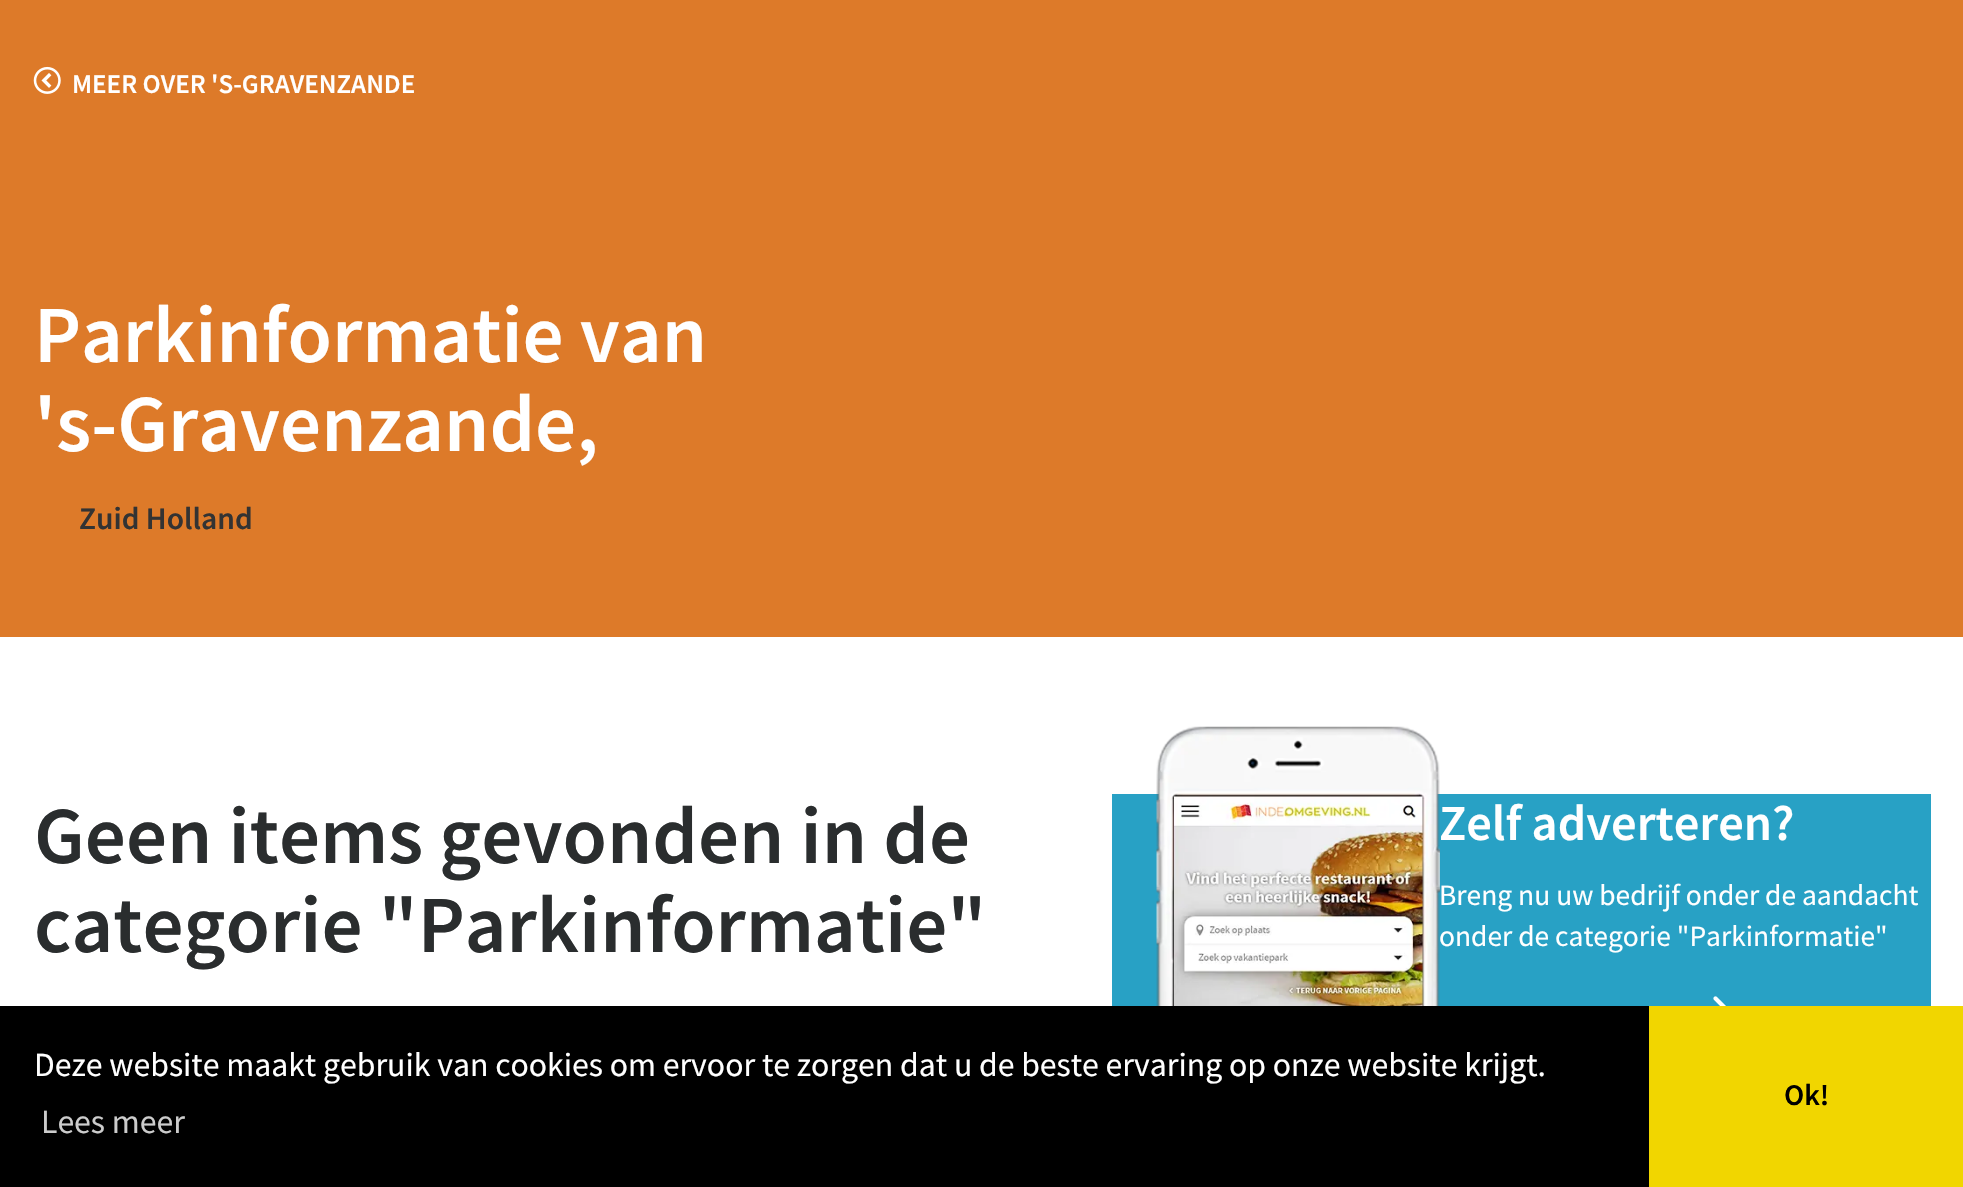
#include "include/core/SkBlurTypes.h"
#include "include/core/SkCanvas.h"
#include "include/core/SkData.h"
#include "include/core/SkFont.h"
#include "include/core/SkFontMgr.h"
#include "include/core/SkImage.h"
#include "include/core/SkMaskFilter.h"
#include "include/core/SkPaint.h"
#include "include/core/SkPathBuilder.h"
#include "include/core/SkTextBlob.h"
#include "include/effects/SkDashPathEffect.h"
#include "include/effects/SkGradientShader.h"
#include "include/utils/SkParsePath.h"

extern sk_sp<SkFontMgr> fontMgr;

static SkFont font(const char* family, int weight, float size, bool italic = false) {
    SkFontStyle style(weight, SkFontStyle::kNormal_Width,
        italic ? SkFontStyle::kItalic_Slant : SkFontStyle::kUpright_Slant);
    SkFont result(fontMgr->matchFamilyStyle(family, style), size);
    result.setSubpixel(true);
    return result;
}

static void drawLabel(SkCanvas* canvas, const char* s, float x, float y, const SkFont& font, SkColor color) {
    SkPaint ink(SkColor4f::FromColor(color));
    ink.setAntiAlias(true);
    canvas->drawString(s, x, y, font, ink);
}

static void fillRect(SkCanvas* canvas, float x, float y, float w, float h, SkColor color) {
    SkPaint ink(SkColor4f::FromColor(color));
    ink.setAntiAlias(true);
    canvas->drawRect(SkRect::MakeXYWH(x, y, w, h), ink);
}

static void drawPhoto(SkCanvas* canvas, const char* path, float x, float y, float w, float h) {
    auto image = SkImages::DeferredFromEncodedData(SkData::MakeFromFileName(path));
    canvas->drawImageRect(image, SkRect::MakeXYWH(x, y, w, h), SkSamplingOptions());
}

void draw(SkCanvas* canvas) {
    SkPaint paint;
    paint.setAntiAlias(true);
    canvas->clear(0xFFFFFFFF);
    fillRect(canvas, 0, 0, 1963, 637, 0xFFDD7A29);
    drawPhoto(canvas, "assets/img1.png", 33, 66, 28, 28);
    SkFont font1 = font("Source Sans Pro", 600, 27);
    drawLabel(canvas, "MEER OVER 'S-GRAVENZANDE", 72, 93, font1, 0xFFFFFFFF);
    SkFont font2 = font("Source Sans Pro", 600, 81);
    drawLabel(canvas, "Parkinformatie van", 34, 362, font2, 0xFFFFFFFF);
    drawLabel(canvas, "'s-Gravenzande,", 34, 451, font2, 0xFFFFFFFF);
    SkFont font3 = font("Source Sans Pro", 600, 31.5f);
    drawLabel(canvas, "Zuid Holland", 79, 529, font3, 0xFF333333);
    drawLabel(canvas, "Geen items gevonden in de", 34, 863, font2, 0xFF2A2D2E);
    drawLabel(canvas, "categorie \"Parkinformatie\"", 34, 952, font2, 0xFF2A2D2E);
    fillRect(canvas, 1112, 794, 819, 212, 0xFF28A1C5);
    drawPhoto(canvas, "assets/img2.png", 1156, 726, 284, 280);
    SkFont font4 = font("Source Sans Pro", 600, 50.5f);
    drawLabel(canvas, "Zelf adverteren?", 1439, 840, font4, 0xFFFFFFFF);
    SkFont font5 = font("Source Sans Pro", 400, 29.5f);
    drawLabel(canvas, "Breng nu uw bedrijf onder de aandacht", 1439, 905, font5, 0xFFFFFFFF);
    drawLabel(canvas, "onder de categorie \"Parkinformatie\"", 1439, 946, font5, 0xFFFFFFFF);
    drawPhoto(canvas, "assets/img3.png", 1713, 996, 13, 10);
    fillRect(canvas, 0, 1006, 1649, 181, 0xFF000000);
    SkFont font6 = font("Source Sans Pro", 400, 33.75f);
    drawLabel(canvas, "Deze website maakt gebruik van cookies om ervoor te zorgen dat u de beste ervaring op onze website krijgt.", 34, 1076, font6, 0xFFFFFFFF);
    drawLabel(canvas, "Lees meer", 41, 1133, font6, 0xFFCCCCCC);
    fillRect(canvas, 1649, 1006, 314, 181, 0xFFF1D600);
    SkFont font7 = font("Source Sans Pro", 600, 30);
    drawLabel(canvas, "Ok!", 1784, 1105, font7, 0xFF000000);
}
